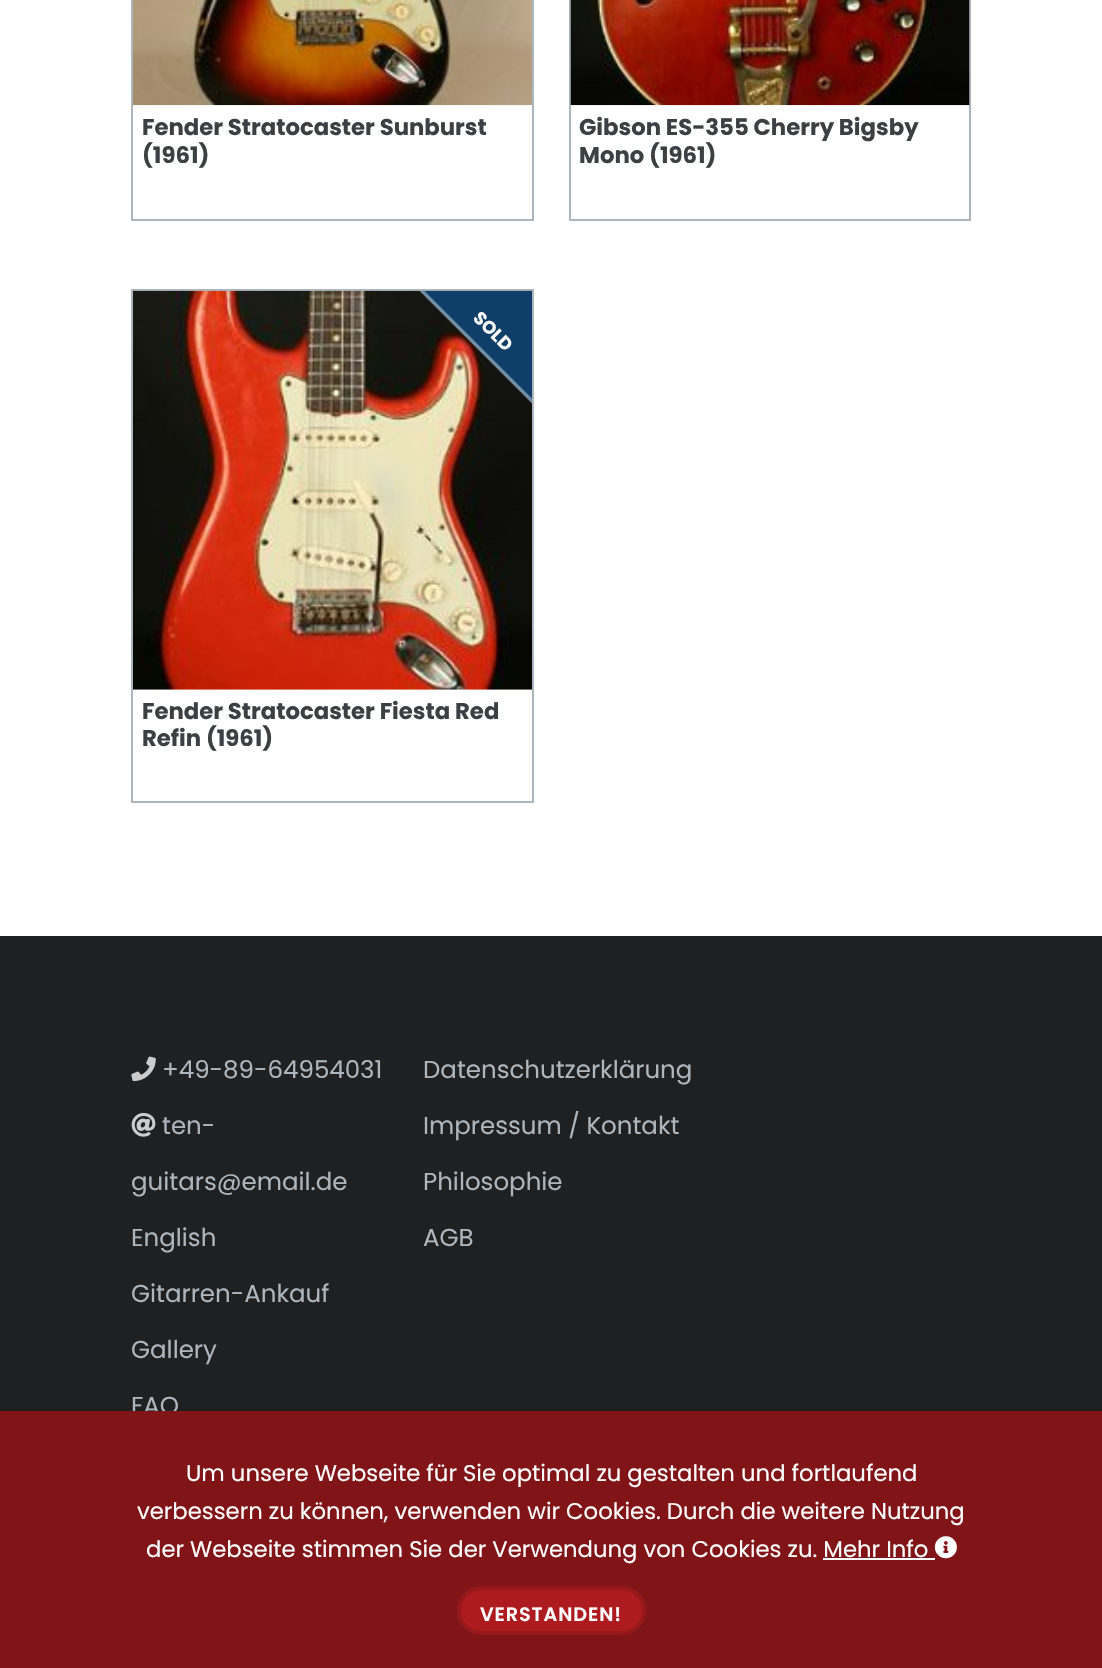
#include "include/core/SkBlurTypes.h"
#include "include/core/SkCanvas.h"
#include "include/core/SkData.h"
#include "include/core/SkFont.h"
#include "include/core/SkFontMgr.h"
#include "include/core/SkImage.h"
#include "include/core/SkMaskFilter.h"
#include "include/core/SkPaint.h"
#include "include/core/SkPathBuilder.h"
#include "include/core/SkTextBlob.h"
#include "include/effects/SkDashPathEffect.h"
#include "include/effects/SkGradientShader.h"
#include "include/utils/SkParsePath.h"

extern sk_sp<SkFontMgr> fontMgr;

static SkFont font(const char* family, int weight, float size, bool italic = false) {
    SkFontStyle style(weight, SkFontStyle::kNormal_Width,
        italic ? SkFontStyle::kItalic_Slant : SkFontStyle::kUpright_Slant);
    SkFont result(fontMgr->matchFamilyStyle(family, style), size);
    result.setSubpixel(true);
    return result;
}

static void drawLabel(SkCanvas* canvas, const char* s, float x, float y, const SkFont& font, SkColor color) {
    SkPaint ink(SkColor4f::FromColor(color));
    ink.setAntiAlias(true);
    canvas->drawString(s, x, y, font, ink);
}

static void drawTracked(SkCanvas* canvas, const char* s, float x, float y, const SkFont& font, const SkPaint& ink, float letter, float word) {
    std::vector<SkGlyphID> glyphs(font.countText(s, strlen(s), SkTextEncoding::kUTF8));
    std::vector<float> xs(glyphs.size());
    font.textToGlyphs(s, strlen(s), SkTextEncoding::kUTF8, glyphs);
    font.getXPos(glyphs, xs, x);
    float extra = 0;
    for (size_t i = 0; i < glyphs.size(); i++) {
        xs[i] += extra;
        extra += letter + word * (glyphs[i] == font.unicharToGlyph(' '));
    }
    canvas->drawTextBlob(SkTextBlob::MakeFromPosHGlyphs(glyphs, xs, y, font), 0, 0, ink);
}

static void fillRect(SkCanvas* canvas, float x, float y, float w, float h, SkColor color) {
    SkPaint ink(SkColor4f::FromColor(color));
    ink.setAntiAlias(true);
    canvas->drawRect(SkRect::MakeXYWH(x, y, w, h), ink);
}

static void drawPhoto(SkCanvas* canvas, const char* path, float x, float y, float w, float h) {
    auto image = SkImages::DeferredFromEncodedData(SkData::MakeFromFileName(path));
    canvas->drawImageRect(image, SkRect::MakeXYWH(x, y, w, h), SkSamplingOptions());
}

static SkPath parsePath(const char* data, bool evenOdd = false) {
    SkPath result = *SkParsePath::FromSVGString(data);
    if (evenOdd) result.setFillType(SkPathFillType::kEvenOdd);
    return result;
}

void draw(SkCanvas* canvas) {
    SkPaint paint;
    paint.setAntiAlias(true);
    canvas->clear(0xFFFFFFFF);
    paint.setStroke(true);
    paint.setStrokeWidth(2);
    paint.setColor(0xFFADB5BD);
    canvas->drawRect(SkRect::MakeXYWH(132, -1, 401, 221), paint);
    drawPhoto(canvas, "assets/img1.png", 133, 0, 399, 106);
    SkFont font1 = font("Poppins", 700, 22.75f);
    drawLabel(canvas, "Fender Stratocaster Sunburst", 142, 135, font1, 0xFF3C4043);
    drawLabel(canvas, "(1961)", 142, 163, font1, 0xFF3C4043);
    canvas->drawRect(SkRect::MakeXYWH(570, -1, 400, 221), paint);
    drawPhoto(canvas, "assets/img2.png", 570, 0, 400, 106);
    drawLabel(canvas, "Gibson ES-355 Cherry Bigsby", 579, 135, font1, 0xFF3C4043);
    drawLabel(canvas, "Mono (1961)", 579, 163, font1, 0xFF3C4043);
    canvas->drawRect(SkRect::MakeXYWH(132, 290, 401, 512), paint);
    drawPhoto(canvas, "assets/img3.png", 133, 290, 399, 400);
    canvas->save();
    canvas->clipRect(SkRect::MakeXYWH(133, 291, 399, 399));
    paint.setStroke(false);
    paint.setColor(0xFF0F3E68);
    canvas->drawPath(parsePath("M476 187L637 348L557 428L396 267Z"), paint);
    paint.setStroke(true);
    paint.setStrokeWidth(3.5f);
    paint.setColor(0x66FFFFFF);
    canvas->drawPath(parsePath("M476 189.5L634.5 347.5L556.5 425.5L398 267Z"), paint);
    canvas->restore();
    SkFont font2 = font("Poppins", 700, 18);
    canvas->save();
    canvas->rotate(45, 472, 319);
    drawLabel(canvas, "SOLD", 472, 319, font2, 0xFFFFFFFF);
    canvas->restore();
    drawLabel(canvas, "Fender Stratocaster Fiesta Red", 142, 719, font1, 0xFF3C4043);
    drawLabel(canvas, "Refin (1961)", 142, 746, font1, 0xFF3C4043);
    fillRect(canvas, 0, 936, 1102, 475, 0xFF1E2022);
    drawPhoto(canvas, "assets/img4.png", 131, 1056, 25, 26);
    SkFont font3 = font("Poppins", 400, 24.5f);
    drawLabel(canvas, "+49-89-64954031", 162, 1078, font3, 0xFFADB5BD);
    drawPhoto(canvas, "assets/img5.png", 131, 1112, 25, 25);
    drawLabel(canvas, "ten-", 162, 1134, font3, 0xFFADB5BD);
    drawLabel(canvas, "guitars@email.de", 131, 1190, font3, 0xFFADB5BD);
    drawLabel(canvas, "English", 131, 1246, font3, 0xFFADB5BD);
    drawLabel(canvas, "Gitarren-Ankauf", 131, 1302, font3, 0xFFADB5BD);
    drawLabel(canvas, "Gallery", 131, 1358, font3, 0xFFADB5BD);
    drawLabel(canvas, "FAQ", 131, 1414, font3, 0xFFADB5BD);
    drawLabel(canvas, "Datenschutzerklärung", 423, 1078, font3, 0xFFADB5BD);
    drawLabel(canvas, "Impressum / Kontakt", 423, 1134, font3, 0xFFADB5BD);
    drawLabel(canvas, "Philosophie", 423, 1190, font3, 0xFFADB5BD);
    drawLabel(canvas, "AGB", 423, 1246, font3, 0xFFADB5BD);
    fillRect(canvas, 0, 1411, 1102, 257, 0xFF811417);
    SkFont font4 = font("Poppins", 400, 22.75f);
    drawLabel(canvas, "Um unsere Webseite für Sie optimal zu gestalten und fortlaufend", 186, 1481, font4, 0xFFFFFFFF);
    drawLabel(canvas, "verbessern zu können, verwenden wir Cookies. Durch die weitere Nutzung", 137, 1519, font4, 0xFFFFFFFF);
    fillRect(canvas, 823, 1558, 112, 2, 0xFFFFFFFF);
    drawPhoto(canvas, "assets/img6.png", 934, 1536, 23, 23);
    drawLabel(canvas, "der Webseite stimmen Sie der Verwendung von Cookies zu. Mehr Info", 146, 1557, font4, 0xFFFFFFFF);
    paint.setStroke(false);
    paint.setColor(0xFFAD1B1F);
    canvas->drawRoundRect(SkRect::MakeXYWH(459, 1588, 185, 45), 22.5f, 22.5f, paint);
    paint.setStroke(true);
    paint.setStrokeWidth(4);
    paint.setColor(0xFF97181B);
    canvas->drawRoundRect(SkRect::MakeXYWH(459, 1588, 185, 45), 22.5f, 22.5f, paint);
    SkFont font5 = font("Poppins", 600, 19.25f);
    paint.setStroke(false);
    paint.setColor(0xFFFFFFFF);
    drawTracked(canvas, "VERSTANDEN!", 480, 1621, font5, paint, 0.9f, 0);
}
